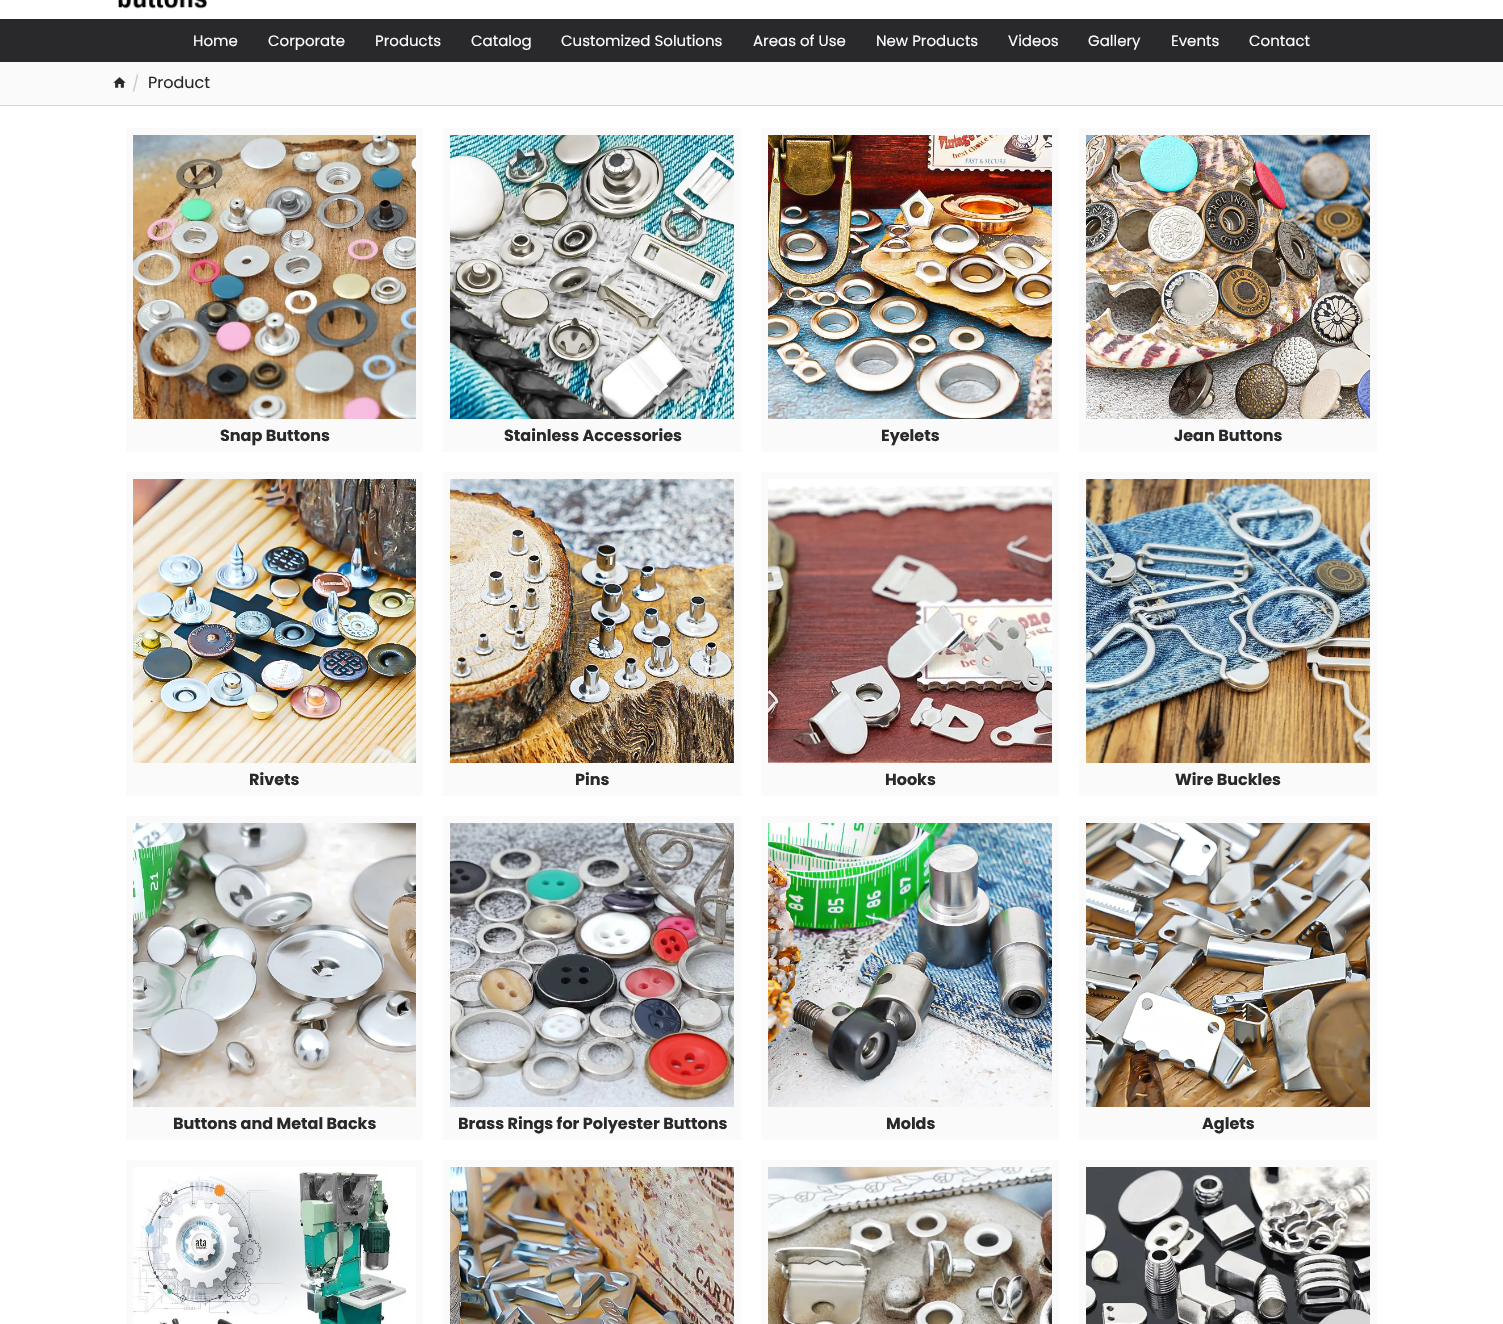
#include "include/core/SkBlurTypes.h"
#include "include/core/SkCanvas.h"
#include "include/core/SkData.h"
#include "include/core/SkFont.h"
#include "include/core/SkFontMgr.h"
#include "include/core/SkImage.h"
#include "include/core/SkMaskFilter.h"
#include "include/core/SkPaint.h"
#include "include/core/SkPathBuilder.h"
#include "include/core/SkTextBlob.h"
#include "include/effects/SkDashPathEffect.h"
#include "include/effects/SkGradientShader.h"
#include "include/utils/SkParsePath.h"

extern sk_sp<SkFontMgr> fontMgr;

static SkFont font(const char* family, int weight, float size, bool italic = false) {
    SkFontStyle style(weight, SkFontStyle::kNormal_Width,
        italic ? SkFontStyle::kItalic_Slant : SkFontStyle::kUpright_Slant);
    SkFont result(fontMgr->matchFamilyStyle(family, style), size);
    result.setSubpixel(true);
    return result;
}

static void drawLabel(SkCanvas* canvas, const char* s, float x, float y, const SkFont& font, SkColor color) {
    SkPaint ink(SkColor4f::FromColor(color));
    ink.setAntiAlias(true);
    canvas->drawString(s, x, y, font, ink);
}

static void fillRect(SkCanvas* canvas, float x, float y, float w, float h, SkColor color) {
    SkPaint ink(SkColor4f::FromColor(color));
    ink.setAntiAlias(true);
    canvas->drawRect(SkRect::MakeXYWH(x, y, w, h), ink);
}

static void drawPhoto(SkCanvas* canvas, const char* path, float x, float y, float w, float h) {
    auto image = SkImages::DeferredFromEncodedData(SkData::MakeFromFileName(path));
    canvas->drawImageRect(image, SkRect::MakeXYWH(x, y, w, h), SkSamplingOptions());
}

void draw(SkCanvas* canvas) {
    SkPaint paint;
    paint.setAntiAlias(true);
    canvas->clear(0xFFFFFFFF);
    drawPhoto(canvas, "assets/img1.png", 118, 0, 90, 9);
    fillRect(canvas, 0, 19, 1503, 43, 0xFF29292B);
    SkFont font1 = font("Poppins", 400, 15);
    drawLabel(canvas, "Home", 193, 46, font1, 0xFFFFFFFF);
    drawLabel(canvas, "Corporate", 268, 46, font1, 0xFFFFFFFF);
    drawLabel(canvas, "Products", 375, 46, font1, 0xFFFFFFFF);
    drawLabel(canvas, "Catalog", 471, 46, font1, 0xFFFFFFFF);
    drawLabel(canvas, "Customized Solutions", 561, 46, font1, 0xFFFFFFFF);
    drawLabel(canvas, "Areas of Use", 753, 46, font1, 0xFFFFFFFF);
    drawLabel(canvas, "New Products", 876, 46, font1, 0xFFFFFFFF);
    drawLabel(canvas, "Videos", 1008, 46, font1, 0xFFFFFFFF);
    drawLabel(canvas, "Gallery", 1088, 46, font1, 0xFFFFFFFF);
    drawLabel(canvas, "Events", 1171, 46, font1, 0xFFFFFFFF);
    drawLabel(canvas, "Contact", 1249, 46, font1, 0xFFFFFFFF);
    fillRect(canvas, 0, 62, 1503, 43, 0xFFFAFAFA);
    fillRect(canvas, 0, 105, 1503, 1, 0xFFD5D5D5);
    drawPhoto(canvas, "assets/img2.png", 113, 77, 13, 11);
    drawLabel(canvas, "/", 132, 89, font1, 0xFFCCCCCC);
    SkFont font2 = font("Poppins", 400, 16);
    drawLabel(canvas, "Product", 148, 88, font2, 0xFF29292B);
    fillRect(canvas, 126, 128, 297, 324, 0xFFFAFAFB);
    drawPhoto(canvas, "assets/img3.png", 133, 135, 283, 284);
    SkFont font3 = font("Poppins", 700, 16);
    drawLabel(canvas, "Snap Buttons", 220, 441, font3, 0xFF29292B);
    fillRect(canvas, 443, 128, 298, 324, 0xFFFAFAFB);
    drawPhoto(canvas, "assets/img4.png", 450, 135, 284, 284);
    drawLabel(canvas, "Stainless Accessories", 504, 441, font3, 0xFF29292B);
    fillRect(canvas, 761, 128, 298, 324, 0xFFFAFAFB);
    drawPhoto(canvas, "assets/img5.png", 768, 135, 284, 284);
    drawLabel(canvas, "Eyelets", 881, 441, font3, 0xFF29292B);
    fillRect(canvas, 1079, 128, 298, 324, 0xFFFAFAFB);
    drawPhoto(canvas, "assets/img6.png", 1086, 135, 284, 284);
    drawLabel(canvas, "Jean Buttons", 1174, 441, font3, 0xFF29292B);
    fillRect(canvas, 126, 472, 297, 324, 0xFFFAFAFB);
    drawPhoto(canvas, "assets/img7.png", 133, 479, 283, 284);
    drawLabel(canvas, "Rivets", 249, 785, font3, 0xFF29292B);
    fillRect(canvas, 443, 472, 298, 324, 0xFFFAFAFB);
    drawPhoto(canvas, "assets/img8.png", 450, 479, 284, 284);
    drawLabel(canvas, "Pins", 575, 785, font3, 0xFF29292B);
    fillRect(canvas, 761, 472, 298, 324, 0xFFFAFAFB);
    drawPhoto(canvas, "assets/img9.png", 768, 479, 284, 284);
    drawLabel(canvas, "Hooks", 885, 785, font3, 0xFF29292B);
    fillRect(canvas, 1079, 472, 298, 324, 0xFFFAFAFB);
    drawPhoto(canvas, "assets/img10.png", 1086, 479, 284, 284);
    drawLabel(canvas, "Wire Buckles", 1175, 785, font3, 0xFF29292B);
    fillRect(canvas, 126, 816, 297, 324, 0xFFFAFAFB);
    drawPhoto(canvas, "assets/img11.png", 133, 823, 283, 284);
    drawLabel(canvas, "Buttons and Metal Backs", 173, 1129, font3, 0xFF29292B);
    fillRect(canvas, 443, 816, 298, 324, 0xFFFAFAFB);
    drawPhoto(canvas, "assets/img12.png", 450, 823, 284, 284);
    drawLabel(canvas, "Brass Rings for Polyester Buttons", 458, 1129, font3, 0xFF29292B);
    fillRect(canvas, 761, 816, 298, 324, 0xFFFAFAFB);
    drawPhoto(canvas, "assets/img13.png", 768, 823, 284, 284);
    drawLabel(canvas, "Molds", 886, 1129, font3, 0xFF29292B);
    fillRect(canvas, 1079, 816, 298, 324, 0xFFFAFAFB);
    drawPhoto(canvas, "assets/img14.png", 1086, 823, 284, 284);
    drawLabel(canvas, "Aglets", 1202, 1129, font3, 0xFF29292B);
    fillRect(canvas, 126, 1160, 297, 164, 0xFFFAFAFB);
    drawPhoto(canvas, "assets/img15.png", 133, 1167, 283, 157);
    fillRect(canvas, 443, 1160, 298, 164, 0xFFFAFAFB);
    drawPhoto(canvas, "assets/img16.png", 450, 1167, 284, 157);
    fillRect(canvas, 761, 1160, 298, 164, 0xFFFAFAFB);
    drawPhoto(canvas, "assets/img17.png", 768, 1167, 284, 157);
    fillRect(canvas, 1079, 1160, 298, 164, 0xFFFAFAFB);
    drawPhoto(canvas, "assets/img18.png", 1086, 1167, 284, 157);
}
